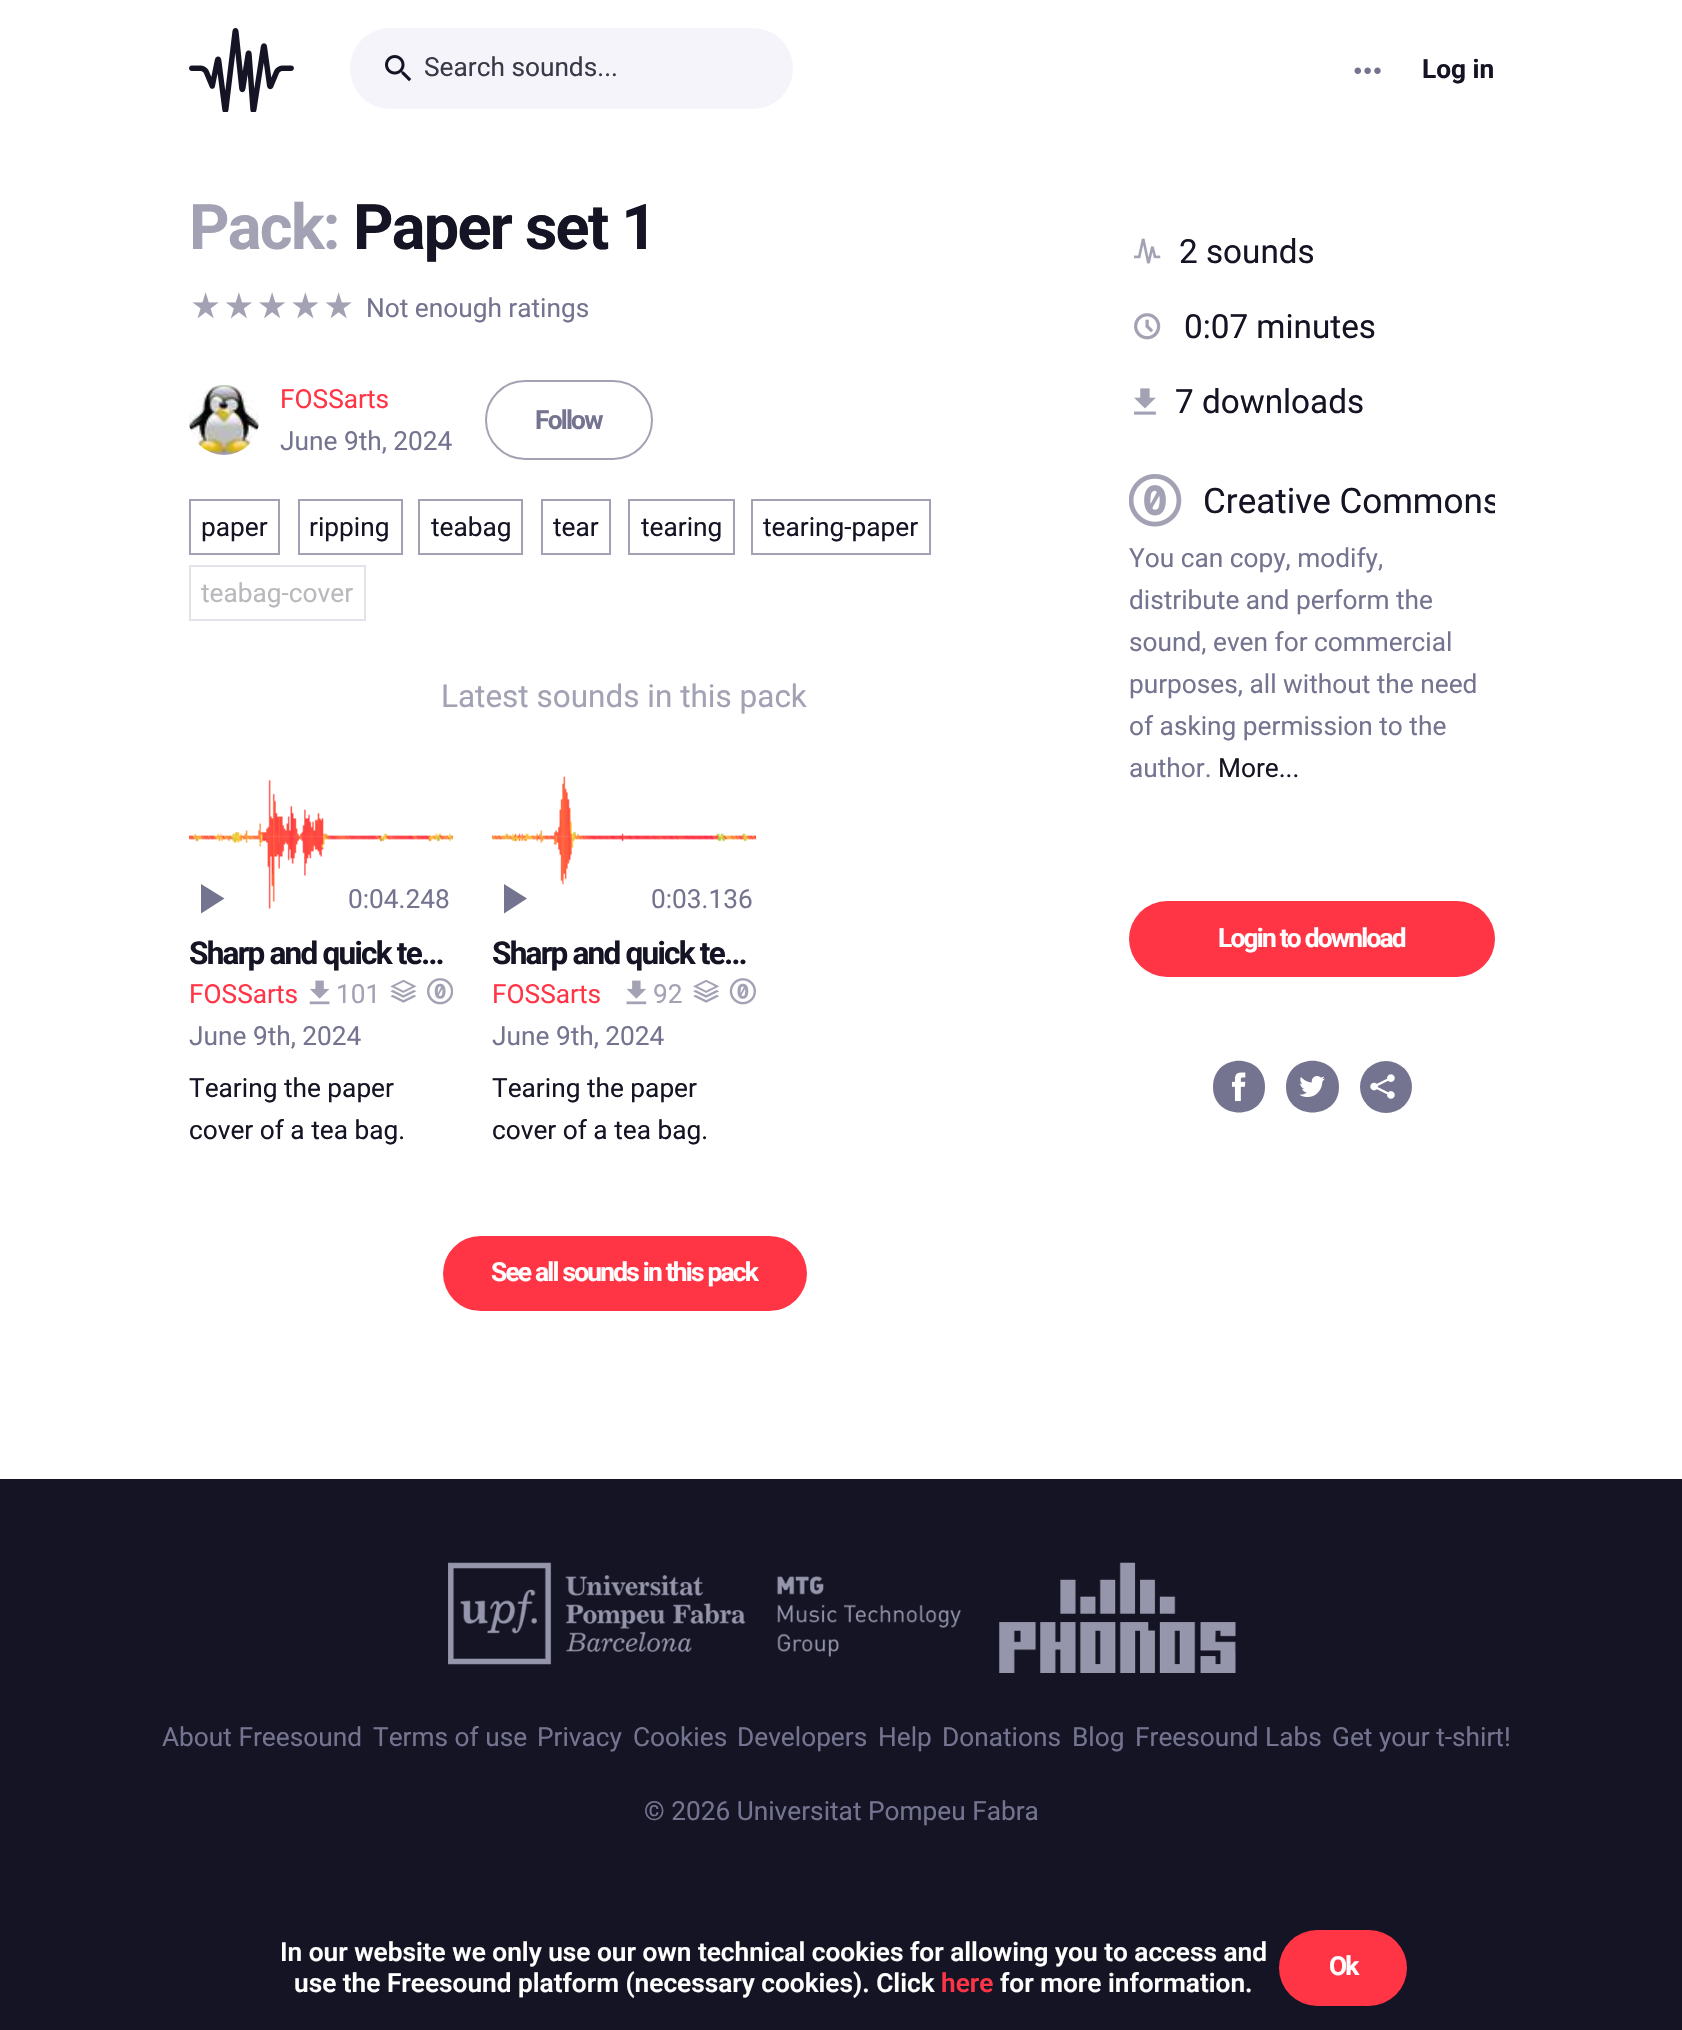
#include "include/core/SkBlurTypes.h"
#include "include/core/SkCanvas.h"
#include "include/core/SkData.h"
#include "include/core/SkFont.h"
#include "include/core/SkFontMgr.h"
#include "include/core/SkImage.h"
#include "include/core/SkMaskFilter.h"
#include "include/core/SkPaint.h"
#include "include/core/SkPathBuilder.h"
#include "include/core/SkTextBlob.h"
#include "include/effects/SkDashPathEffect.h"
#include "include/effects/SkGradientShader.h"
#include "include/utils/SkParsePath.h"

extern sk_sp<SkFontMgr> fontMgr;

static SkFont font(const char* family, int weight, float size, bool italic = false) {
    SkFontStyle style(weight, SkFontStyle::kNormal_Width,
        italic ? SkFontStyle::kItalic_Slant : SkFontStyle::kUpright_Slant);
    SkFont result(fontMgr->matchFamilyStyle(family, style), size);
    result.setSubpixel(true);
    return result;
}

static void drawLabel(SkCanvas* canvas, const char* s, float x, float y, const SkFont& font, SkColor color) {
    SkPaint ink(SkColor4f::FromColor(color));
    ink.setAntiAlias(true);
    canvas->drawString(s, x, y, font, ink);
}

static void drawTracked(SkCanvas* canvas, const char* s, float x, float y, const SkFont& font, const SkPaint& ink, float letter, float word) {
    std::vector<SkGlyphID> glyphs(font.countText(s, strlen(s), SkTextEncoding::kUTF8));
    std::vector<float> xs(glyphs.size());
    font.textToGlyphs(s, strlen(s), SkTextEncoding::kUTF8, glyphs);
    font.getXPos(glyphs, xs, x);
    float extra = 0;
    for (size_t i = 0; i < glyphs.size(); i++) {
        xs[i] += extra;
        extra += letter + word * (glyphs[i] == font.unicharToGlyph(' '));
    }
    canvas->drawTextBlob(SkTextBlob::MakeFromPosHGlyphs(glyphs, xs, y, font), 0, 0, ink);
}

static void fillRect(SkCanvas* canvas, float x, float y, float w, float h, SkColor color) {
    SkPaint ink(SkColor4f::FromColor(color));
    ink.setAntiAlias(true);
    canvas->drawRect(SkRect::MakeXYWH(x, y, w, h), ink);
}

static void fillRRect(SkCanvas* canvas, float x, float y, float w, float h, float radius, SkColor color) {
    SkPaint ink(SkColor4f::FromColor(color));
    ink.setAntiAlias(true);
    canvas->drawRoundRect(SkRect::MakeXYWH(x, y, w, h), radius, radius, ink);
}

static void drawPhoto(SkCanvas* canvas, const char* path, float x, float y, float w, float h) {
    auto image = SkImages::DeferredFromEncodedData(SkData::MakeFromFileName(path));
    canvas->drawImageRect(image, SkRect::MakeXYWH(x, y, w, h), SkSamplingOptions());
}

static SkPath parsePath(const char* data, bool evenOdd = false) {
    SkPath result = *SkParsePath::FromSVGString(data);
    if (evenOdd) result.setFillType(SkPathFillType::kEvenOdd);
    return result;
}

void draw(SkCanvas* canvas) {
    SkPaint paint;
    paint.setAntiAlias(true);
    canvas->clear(0xFF141424);
    fillRect(canvas, 0, 0, 1682, 1479, 0xFFFFFFFF);
    drawPhoto(canvas, "assets/img1.png", 189, 28, 105, 84);
    fillRRect(canvas, 350, 28, 443, 81, 40.5f, 0xFFF4F4FA);
    drawPhoto(canvas, "assets/img2.png", 385, 55, 27, 27);
    SkFont font1 = font("Roboto", 400, 26.25f);
    drawLabel(canvas, "Search sounds...", 424, 76, font1, 0xFF393947);
    drawPhoto(canvas, "assets/img3.png", 1354, 67, 27, 7);
    SkFont font2 = font("Roboto", 700, 26.25f);
    drawLabel(canvas, "Log in", 1422, 78, font2, 0xFF141424);
    SkFont font3 = font("Roboto", 700, 63);
    paint.setColor(0xFFA2A2B4);
    drawTracked(canvas, "Pack:", 189, 249, font3, paint, -1.75f, 0);
    paint.setColor(0xFF141424);
    drawTracked(canvas, "Paper set 1", 353, 249, font3, paint, -1.75f, 0);
    drawPhoto(canvas, "assets/img4.png", 192, 292, 27, 27);
    drawPhoto(canvas, "assets/img5.png", 226, 292, 26, 27);
    drawPhoto(canvas, "assets/img6.png", 259, 292, 26, 27);
    drawPhoto(canvas, "assets/img7.png", 292, 292, 27, 27);
    drawPhoto(canvas, "assets/img4.png", 325, 292, 27, 27);
    drawLabel(canvas, "Not enough ratings", 366, 317, font1, 0xFF747490);
    drawPhoto(canvas, "assets/img8.png", 189, 385, 70, 70);
    drawLabel(canvas, "FOSSarts", 280, 408, font1, 0xFFFF3546);
    drawLabel(canvas, "June 9th, 2024", 280, 450, font1, 0xFF747490);
    paint.setStroke(true);
    paint.setStrokeWidth(2);
    paint.setColor(0xFFA2A2B4);
    canvas->drawRoundRect(SkRect::MakeXYWH(486, 381, 166, 78), 39, 39, paint);
    paint.setStroke(false);
    paint.setColor(0xFF747490);
    drawTracked(canvas, "Follow", 535, 429, font2, paint, -1.75f, 0);
    paint.setStroke(true);
    paint.setColor(0xFFA2A2B4);
    canvas->drawRect(SkRect::MakeXYWH(190, 500, 89, 54), paint);
    drawLabel(canvas, "paper", 201, 536, font1, 0xFF141424);
    canvas->drawRect(SkRect::MakeXYWH(299, 500, 103, 54), paint);
    drawLabel(canvas, "ripping", 309, 536, font1, 0xFF141424);
    canvas->drawRect(SkRect::MakeXYWH(419, 500, 103, 54), paint);
    drawLabel(canvas, "teabag", 431, 536, font1, 0xFF141424);
    canvas->drawRect(SkRect::MakeXYWH(542, 500, 68, 54), paint);
    drawLabel(canvas, "tear", 553, 536, font1, 0xFF141424);
    canvas->drawRect(SkRect::MakeXYWH(629, 500, 105, 54), paint);
    drawLabel(canvas, "tearing", 641, 536, font1, 0xFF141424);
    canvas->drawRect(SkRect::MakeXYWH(752, 500, 178, 54), paint);
    drawLabel(canvas, "tearing-paper", 763, 536, font1, 0xFF141424);
    paint.setColor(0xFFE3E3E9);
    canvas->drawRect(SkRect::MakeXYWH(190, 566, 175, 54), paint);
    drawLabel(canvas, "teabag-cover", 201, 602, font1, 0xFFB9B9BD);
    SkFont font4 = font("Roboto", 400, 31.5f);
    drawLabel(canvas, "Latest sounds in this pack", 441, 707, font4, 0xFFA2A2B4);
    drawPhoto(canvas, "assets/img9.png", 189, 779, 265, 130);
    paint.setStroke(false);
    paint.setColor(0xFF747490);
    canvas->drawPath(parsePath("M201 884V913.5L224.5 898.5Z"), paint);
    drawLabel(canvas, "0:04.248", 348, 908, font1, 0xFF747490);
    SkFont font5 = font("Roboto", 700, 31.5f);
    paint.setColor(0xFF141424);
    drawTracked(canvas, "Sharp and quick te…", 189, 964, font5, paint, -1.75f, 0);
    drawLabel(canvas, "FOSSarts", 189, 1003, font1, 0xFFFF3546);
    drawPhoto(canvas, "assets/img10.png", 309, 980, 21, 25);
    drawLabel(canvas, "101", 336, 1003, font1, 0xFFA2A2B4);
    drawPhoto(canvas, "assets/img11.png", 390, 979, 27, 24);
    drawPhoto(canvas, "assets/img12.png", 427, 978, 26, 27);
    drawLabel(canvas, "June 9th, 2024", 189, 1045, font1, 0xFF747490);
    drawLabel(canvas, "Tearing the paper", 189, 1097, font1, 0xFF141424);
    drawLabel(canvas, "cover of a tea bag.", 189, 1139, font1, 0xFF141424);
    drawPhoto(canvas, "assets/img13.png", 491, 776, 265, 109);
    paint.setColor(0xFF747490);
    canvas->drawPath(parsePath("M504 884V913.5L527 898.5Z"), paint);
    drawLabel(canvas, "0:03.136", 651, 908, font1, 0xFF747490);
    paint.setColor(0xFF141424);
    drawTracked(canvas, "Sharp and quick te…", 492, 964, font5, paint, -1.75f, 0);
    drawLabel(canvas, "FOSSarts", 492, 1003, font1, 0xFFFF3546);
    drawPhoto(canvas, "assets/img14.png", 626, 980, 21, 25);
    drawLabel(canvas, "92", 653, 1003, font1, 0xFFA2A2B4);
    drawPhoto(canvas, "assets/img15.png", 693, 979, 26, 24);
    drawPhoto(canvas, "assets/img16.png", 729, 978, 27, 27);
    drawLabel(canvas, "June 9th, 2024", 492, 1045, font1, 0xFF747490);
    drawLabel(canvas, "Tearing the paper", 492, 1097, font1, 0xFF141424);
    drawLabel(canvas, "cover of a tea bag.", 492, 1139, font1, 0xFF141424);
    fillRRect(canvas, 443, 1236, 364, 75, 37.5f, 0xFFFF3546);
    paint.setColor(0xFFFFFFFF);
    drawTracked(canvas, "See all sounds in this pack", 491, 1281, font2, paint, -1.75f, 0);
    drawPhoto(canvas, "assets/img17.png", 1134, 238, 27, 26);
    SkFont font6 = font("Roboto", 400, 33.25f);
    drawLabel(canvas, "2 sounds", 1179, 263, font6, 0xFF141424);
    drawPhoto(canvas, "assets/img18.png", 1134, 313, 27, 27);
    drawLabel(canvas, "0:07 minutes", 1184, 338, font6, 0xFF141424);
    drawPhoto(canvas, "assets/img19.png", 1134, 388, 22, 27);
    drawLabel(canvas, "7 downloads", 1175, 413, font6, 0xFF141424);
    drawPhoto(canvas, "assets/img20.png", 1129, 474, 53, 53);
    canvas->save();
    canvas->clipRect(SkRect::MakeXYWH(1129, 474, 366, 53));
    SkFont font7 = font("Roboto", 400, 35);
    drawLabel(canvas, "Creative Commons", 1203, 513, font7, 0xFF141424);
    canvas->restore();
    drawLabel(canvas, "You can copy, modify,", 1129, 567, font1, 0xFF747490);
    drawLabel(canvas, "distribute and perform the", 1129, 609, font1, 0xFF747490);
    drawLabel(canvas, "sound, even for commercial", 1129, 651, font1, 0xFF747490);
    drawLabel(canvas, "purposes, all without the need", 1129, 693, font1, 0xFF747490);
    drawLabel(canvas, "of asking permission to the", 1129, 735, font1, 0xFF747490);
    drawLabel(canvas, "author.", 1129, 777, font1, 0xFF747490);
    drawLabel(canvas, "More...", 1218, 777, font1, 0xFF141424);
    fillRRect(canvas, 1129, 901, 366, 76, 38, 0xFFFF3546);
    drawTracked(canvas, "Login to download", 1218, 947, font2, paint, -1.75f, 0);
    paint.setColor(0xFF747490);
    canvas->drawPath(parsePath("M1213 1087C1213 1052 1265 1052 1265 1087C1265 1121 1213 1121 1213 1087Z"), paint);
    drawPhoto(canvas, "assets/img21.png", 1232, 1072, 14, 30);
    canvas->drawPath(parsePath("M1286 1087C1286 1052 1339 1052 1339 1087C1339 1121 1286 1121 1286 1087Z"), paint);
    drawPhoto(canvas, "assets/img22.png", 1299, 1076, 26, 21);
    canvas->drawCircle(1386, 1087, 26, paint);
    drawPhoto(canvas, "assets/img23.png", 1370, 1074, 25, 25);
    drawPhoto(canvas, "assets/img24.png", 448, 1562, 513, 103);
    drawPhoto(canvas, "assets/img25.png", 999, 1562, 237, 111);
    drawLabel(canvas, "About Freesound", 162, 1746, font1, 0xFF747490);
    drawLabel(canvas, "Terms of use", 373, 1746, font1, 0xFF747490);
    drawLabel(canvas, "Privacy", 537, 1746, font1, 0xFF747490);
    drawLabel(canvas, "Cookies", 633, 1746, font1, 0xFF747490);
    drawLabel(canvas, "Developers", 737, 1746, font1, 0xFF747490);
    drawLabel(canvas, "Help", 878, 1746, font1, 0xFF747490);
    drawLabel(canvas, "Donations", 942, 1746, font1, 0xFF747490);
    drawLabel(canvas, "Blog", 1072, 1746, font1, 0xFF747490);
    drawLabel(canvas, "Freesound Labs", 1135, 1746, font1, 0xFF747490);
    drawLabel(canvas, "Get your t-shirt!", 1332, 1746, font1, 0xFF747490);
    drawLabel(canvas, "© 2026 Universitat Pompeu Fabra", 644, 1820, font1, 0xFF747490);
    SkFont font8 = font("Roboto", 600, 26.25f);
    drawLabel(canvas, "In our website we only use our own technical cookies for allowing you to access and", 280, 1961, font8, 0xFFFFFFFF);
    drawLabel(canvas, "use the Freesound platform (necessary cookies). Click", 294, 1992, font8, 0xFFFFFFFF);
    drawLabel(canvas, "here", 941, 1992, font8, 0xFFFF3546);
    drawLabel(canvas, "for more information.", 1000, 1992, font8, 0xFFFFFFFF);
    fillRRect(canvas, 1279, 1930, 128, 76, 38, 0xFFFF3546);
    paint.setColor(0xFFFFFFFF);
    drawTracked(canvas, "Ok", 1329, 1975, font2, paint, -1.75f, 0);
}
